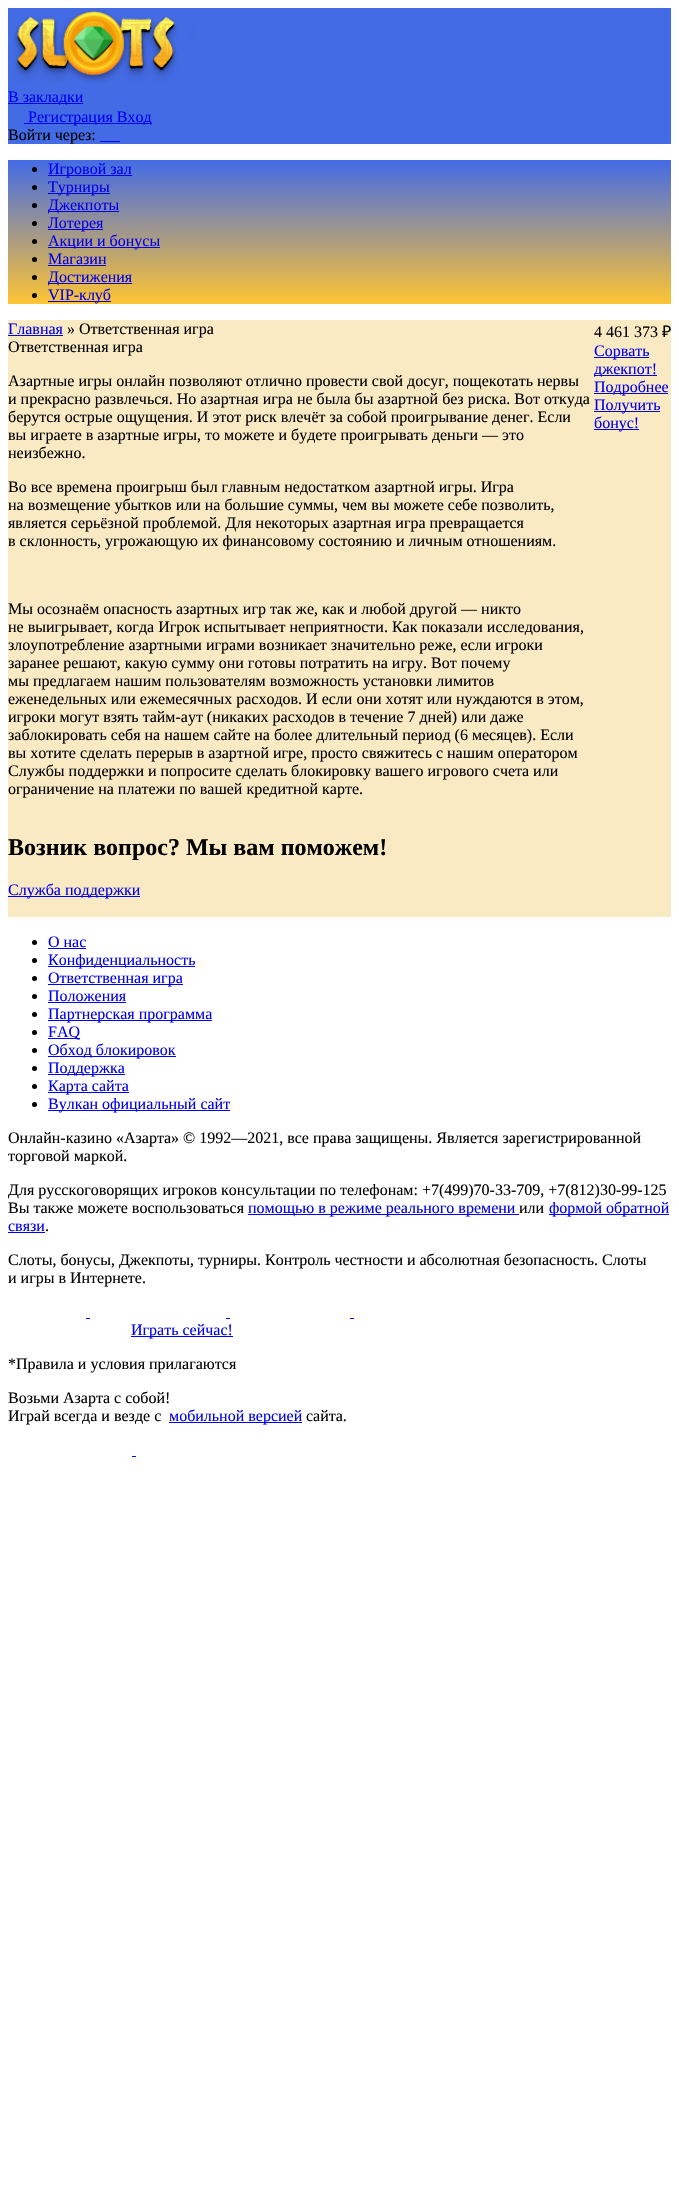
#include "include/core/SkBlurTypes.h"
#include "include/core/SkCanvas.h"
#include "include/core/SkData.h"
#include "include/core/SkFont.h"
#include "include/core/SkFontMgr.h"
#include "include/core/SkImage.h"
#include "include/core/SkMaskFilter.h"
#include "include/core/SkPaint.h"
#include "include/core/SkPathBuilder.h"
#include "include/core/SkTextBlob.h"
#include "include/effects/SkDashPathEffect.h"
#include "include/effects/SkGradientShader.h"
#include "include/utils/SkParsePath.h"

extern sk_sp<SkFontMgr> fontMgr;

static SkFont font(const char* family, int weight, float size, bool italic = false) {
    SkFontStyle style(weight, SkFontStyle::kNormal_Width,
        italic ? SkFontStyle::kItalic_Slant : SkFontStyle::kUpright_Slant);
    SkFont result(fontMgr->matchFamilyStyle(family, style), size);
    result.setSubpixel(true);
    return result;
}

static void drawLabel(SkCanvas* canvas, const char* s, float x, float y, const SkFont& font, SkColor color) {
    SkPaint ink(SkColor4f::FromColor(color));
    ink.setAntiAlias(true);
    canvas->drawString(s, x, y, font, ink);
}

static void fillRect(SkCanvas* canvas, float x, float y, float w, float h, SkColor color) {
    SkPaint ink(SkColor4f::FromColor(color));
    ink.setAntiAlias(true);
    canvas->drawRect(SkRect::MakeXYWH(x, y, w, h), ink);
}

static void drawPhoto(SkCanvas* canvas, const char* path, float x, float y, float w, float h) {
    auto image = SkImages::DeferredFromEncodedData(SkData::MakeFromFileName(path));
    canvas->drawImageRect(image, SkRect::MakeXYWH(x, y, w, h), SkSamplingOptions());
}

void draw(SkCanvas* canvas) {
    SkPaint paint;
    paint.setAntiAlias(true);
    canvas->clear(0xFFFFFFFF);
    fillRect(canvas, 8, 8, 663, 136, 0xFF436BE5);
    drawPhoto(canvas, "assets/img1.png", 13, 10, 183, 73);
    fillRect(canvas, 8, 103, 75, 1, 0xFF0000EE);
    SkFont font1 = font("Liberation Serif", 400, 16);
    drawLabel(canvas, "В закладки", 8, 102, font1, 0xFF0000EE);
    fillRect(canvas, 24, 123, 128, 1, 0xFF0000EE);
    drawLabel(canvas, "Регистрация Вход", 28, 122, font1, 0xFF0000EE);
    drawLabel(canvas, "Войти через:", 8, 140, font1, 0xFF000000);
    fillRect(canvas, 100, 141, 20, 1, 0xFF0000EE);
    {
        const SkColor colors[] = {0xFF436BE5, 0xFFFEC433};
        const float stops[] = {0, 1};
        const SkPoint ends[] = {{340, 160}, {340, 304}};
        paint.setShader(SkGradientShader::MakeLinear(ends, colors, stops, 2, SkTileMode::kClamp));
        paint.setAlpha(255);
    }
    canvas->drawRect(SkRect::MakeXYWH(8, 160, 663, 144), paint);
    paint.setShader(nullptr);
    paint.setColor(0xFF000000);
    canvas->drawCircle(34.5f, 169.5f, 2.5f, paint);
    fillRect(canvas, 48, 175, 84, 1, 0xFF0000EE);
    drawLabel(canvas, "Игровой зал", 48, 174, font1, 0xFF0000EE);
    canvas->drawCircle(34.5f, 187.5f, 2.5f, paint);
    fillRect(canvas, 48, 193, 62, 1, 0xFF0000EE);
    drawLabel(canvas, "Турниры", 48, 192, font1, 0xFF0000EE);
    canvas->drawCircle(34.5f, 205.5f, 2.5f, paint);
    fillRect(canvas, 48, 211, 71, 1, 0xFF0000EE);
    drawLabel(canvas, "Джекпоты", 48, 210, font1, 0xFF0000EE);
    canvas->drawCircle(34.5f, 223.5f, 2.5f, paint);
    fillRect(canvas, 48, 229, 55, 1, 0xFF0000EE);
    drawLabel(canvas, "Лотерея", 48, 228, font1, 0xFF0000EE);
    canvas->drawCircle(34.5f, 241.5f, 2.5f, paint);
    fillRect(canvas, 48, 247, 112, 1, 0xFF0000EE);
    drawLabel(canvas, "Акции и бонусы", 48, 246, font1, 0xFF0000EE);
    canvas->drawCircle(34.5f, 259.5f, 2.5f, paint);
    drawLabel(canvas, "Магазин", 48, 264, font1, 0xFF0000EE);
    fillRect(canvas, 48, 265, 58, 1, 0xFF0000EE);
    canvas->drawCircle(34.5f, 277.5f, 2.5f, paint);
    fillRect(canvas, 48, 283, 84, 1, 0xFF0000EE);
    drawLabel(canvas, "Достижения", 48, 282, font1, 0xFF0000EE);
    canvas->drawCircle(34.5f, 295.5f, 2.5f, paint);
    fillRect(canvas, 48, 301, 63, 1, 0xFF0000EE);
    drawLabel(canvas, "VIP-клуб", 48, 300, font1, 0xFF0000EE);
    fillRect(canvas, 8, 320, 663, 597, 0xFFFAEAC3);
    drawLabel(canvas, "Главная", 8, 334, font1, 0xFF0000EE);
    fillRect(canvas, 8, 335, 55, 1, 0xFF0000EE);
    drawLabel(canvas, "» Ответственная игра", 67, 334, font1, 0xFF000000);
    drawLabel(canvas, "Ответственная игра", 8, 352, font1, 0xFF000000);
    drawLabel(canvas, "Азартные игры онлайн позволяют отлично провести свой досуг, пощекотать нервы", 8, 386, font1, 0xFF000000);
    drawLabel(canvas, "и прекрасно развлечься. Но азартная игра не была бы азартной без риска. Вот откуда", 8, 404, font1, 0xFF000000);
    drawLabel(canvas, "берутся острые ощущения. И этот риск влечёт за собой проигрывание денег. Если", 8, 422, font1, 0xFF000000);
    drawLabel(canvas, "вы играете в азартные игры, то можете и будете проигрывать деньги — это", 8, 440, font1, 0xFF000000);
    drawLabel(canvas, "неизбежно.", 8, 458, font1, 0xFF000000);
    drawLabel(canvas, "Во все времена проигрыш был главным недостатком азартной игры. Игра", 8, 492, font1, 0xFF000000);
    drawLabel(canvas, "на возмещение убытков или на большие суммы, чем вы можете себе позволить,", 8, 510, font1, 0xFF000000);
    drawLabel(canvas, "является серьёзной проблемой. Для некоторых азартная игра превращается", 8, 528, font1, 0xFF000000);
    drawLabel(canvas, "в склонность, угрожающую их финансовому состоянию и личным отношениям.", 8, 546, font1, 0xFF000000);
    drawLabel(canvas, "Мы осознаём опасность азартных игр так же, как и любой другой — никто", 8, 614, font1, 0xFF000000);
    drawLabel(canvas, "не выигрывает, когда Игрок испытывает неприятности. Как показали исследования,", 8, 632, font1, 0xFF000000);
    drawLabel(canvas, "злоупотребление азартными играми возникает значительно реже, если игроки", 8, 650, font1, 0xFF000000);
    drawLabel(canvas, "заранее решают, какую сумму они готовы потратить на игру. Вот почему", 8, 668, font1, 0xFF000000);
    drawLabel(canvas, "мы предлагаем нашим пользователям возможность установки лимитов", 8, 686, font1, 0xFF000000);
    drawLabel(canvas, "еженедельных или ежемесячных расходов. И если они хотят или нуждаются в этом,", 8, 704, font1, 0xFF000000);
    drawLabel(canvas, "игроки могут взять тайм-аут (никаких расходов в течение 7 дней) или даже", 8, 722, font1, 0xFF000000);
    drawLabel(canvas, "заблокировать себя на нашем сайте на более длительный период (6 месяцев). Если", 8, 740, font1, 0xFF000000);
    drawLabel(canvas, "вы хотите сделать перерыв в азартной игре, просто свяжитесь с нашим оператором", 8, 758, font1, 0xFF000000);
    drawLabel(canvas, "Службы поддержки и попросите сделать блокировку вашего игрового счета или", 8, 776, font1, 0xFF000000);
    drawLabel(canvas, "ограничение на платежи по вашей кредитной карте.", 8, 794, font1, 0xFF000000);
    drawLabel(canvas, "4 461 373", 594, 337, font1, 0xFF000000);
    SkFont font2 = font("Noto Sans", 400, 16);
    drawLabel(canvas, "₽", 662, 337, font2, 0xFF000000);
    fillRect(canvas, 594, 357, 55, 1, 0xFF0000EE);
    drawLabel(canvas, "Сорвать", 594, 356, font1, 0xFF0000EE);
    fillRect(canvas, 594, 375, 63, 1, 0xFF0000EE);
    drawLabel(canvas, "джекпот!", 594, 374, font1, 0xFF0000EE);
    fillRect(canvas, 594, 393, 74, 1, 0xFF0000EE);
    drawLabel(canvas, "Подробнее", 594, 392, font1, 0xFF0000EE);
    fillRect(canvas, 594, 411, 66, 1, 0xFF0000EE);
    drawLabel(canvas, "Получить", 594, 410, font1, 0xFF0000EE);
    fillRect(canvas, 594, 429, 45, 1, 0xFF0000EE);
    drawLabel(canvas, "бонус!", 594, 428, font1, 0xFF0000EE);
    SkFont font3 = font("Liberation Serif", 700, 24);
    drawLabel(canvas, "Возник вопрос? Мы вам поможем!", 8, 855, font3, 0xFF000000);
    fillRect(canvas, 8, 896, 132, 1, 0xFF0000EE);
    drawLabel(canvas, "Служба поддержки", 8, 895, font1, 0xFF0000EE);
    canvas->drawCircle(34.5f, 942.5f, 2.5f, paint);
    drawLabel(canvas, "О нас", 48, 947, font1, 0xFF0000EE);
    fillRect(canvas, 48, 948, 38, 1, 0xFF0000EE);
    canvas->drawCircle(34.5f, 960.5f, 2.5f, paint);
    fillRect(canvas, 48, 966, 147, 1, 0xFF0000EE);
    drawLabel(canvas, "Конфиденциальность", 48, 965, font1, 0xFF0000EE);
    canvas->drawCircle(34.5f, 978.5f, 2.5f, paint);
    fillRect(canvas, 48, 984, 135, 1, 0xFF0000EE);
    drawLabel(canvas, "Ответственная игра", 48, 983, font1, 0xFF0000EE);
    canvas->drawCircle(34.5f, 996.5f, 2.5f, paint);
    drawLabel(canvas, "Положения", 48, 1001, font1, 0xFF0000EE);
    fillRect(canvas, 48, 1002, 78, 1, 0xFF0000EE);
    canvas->drawCircle(34.5f, 1014.5f, 2.5f, paint);
    fillRect(canvas, 48, 1020, 164, 1, 0xFF0000EE);
    drawLabel(canvas, "Партнерская программа", 48, 1019, font1, 0xFF0000EE);
    canvas->drawCircle(34.5f, 1032.5f, 2.5f, paint);
    fillRect(canvas, 48, 1038, 32, 1, 0xFF0000EE);
    drawLabel(canvas, "FAQ", 48, 1037, font1, 0xFF0000EE);
    canvas->drawCircle(34.5f, 1050.5f, 2.5f, paint);
    fillRect(canvas, 48, 1056, 128, 1, 0xFF0000EE);
    drawLabel(canvas, "Обход блокировок", 48, 1055, font1, 0xFF0000EE);
    canvas->drawCircle(34.5f, 1068.5f, 2.5f, paint);
    fillRect(canvas, 48, 1074, 77, 1, 0xFF0000EE);
    drawLabel(canvas, "Поддержка", 48, 1073, font1, 0xFF0000EE);
    canvas->drawCircle(34.5f, 1086.5f, 2.5f, paint);
    fillRect(canvas, 48, 1092, 81, 1, 0xFF0000EE);
    drawLabel(canvas, "Карта сайта", 48, 1091, font1, 0xFF0000EE);
    canvas->drawCircle(34.5f, 1104.5f, 2.5f, paint);
    fillRect(canvas, 48, 1110, 182, 1, 0xFF0000EE);
    drawLabel(canvas, "Вулкан официальный сайт", 48, 1109, font1, 0xFF0000EE);
    drawLabel(canvas, "Онлайн-казино «Азарта» © 1992—2021, все права защищены. Является зарегистрированной", 8, 1143, font1, 0xFF000000);
    drawLabel(canvas, "торговой маркой.", 8, 1161, font1, 0xFF000000);
    drawLabel(canvas, "Для русскоговорящих игроков консультации по телефонам: +7(499)70-33-709, +7(812)30-99-125", 8, 1195, font1, 0xFF000000);
    drawLabel(canvas, "Вы также можете воспользоваться", 8, 1213, font1, 0xFF000000);
    fillRect(canvas, 248, 1214, 271, 1, 0xFF0000EE);
    drawLabel(canvas, "помощью в режиме реального времени", 248, 1213, font1, 0xFF0000EE);
    drawLabel(canvas, "или", 519, 1213, font1, 0xFF000000);
    fillRect(canvas, 549, 1214, 120, 1, 0xFF0000EE);
    drawLabel(canvas, "формой обратной", 549, 1213, font1, 0xFF0000EE);
    drawLabel(canvas, "связи", 8, 1231, font1, 0xFF0000EE);
    fillRect(canvas, 8, 1232, 37, 1, 0xFF0000EE);
    drawLabel(canvas, ".", 45, 1231, font1, 0xFF000000);
    drawLabel(canvas, "Слоты, бонусы, Джекпоты, турниры. Контроль честности и абсолютная безопасность. Слоты", 8, 1265, font1, 0xFF000000);
    drawLabel(canvas, "и игры в Интернете.", 8, 1283, font1, 0xFF000000);
    fillRect(canvas, 86, 1318, 4, 1, 0xFF0000EE);
    fillRect(canvas, 226, 1318, 4, 1, 0xFF0000EE);
    fillRect(canvas, 350, 1318, 4, 1, 0xFF0000EE);
    fillRect(canvas, 131, 1336, 102, 1, 0xFF0000EE);
    drawLabel(canvas, "Играть сейчас!", 131, 1335, font1, 0xFF0000EE);
    drawLabel(canvas, "*Правила и условия прилагаются", 8, 1369, font1, 0xFF000000);
    drawLabel(canvas, "Возьми Азарта с собой!", 8, 1403, font1, 0xFF000000);
    drawLabel(canvas, "Играй всегда и везде с", 8, 1421, font1, 0xFF000000);
    fillRect(canvas, 169, 1422, 133, 1, 0xFF0000EE);
    drawLabel(canvas, "мобильной версией", 169, 1421, font1, 0xFF0000EE);
    drawLabel(canvas, "сайта.", 306, 1421, font1, 0xFF000000);
    fillRect(canvas, 132, 1456, 4, 1, 0xFF0000EE);
}
